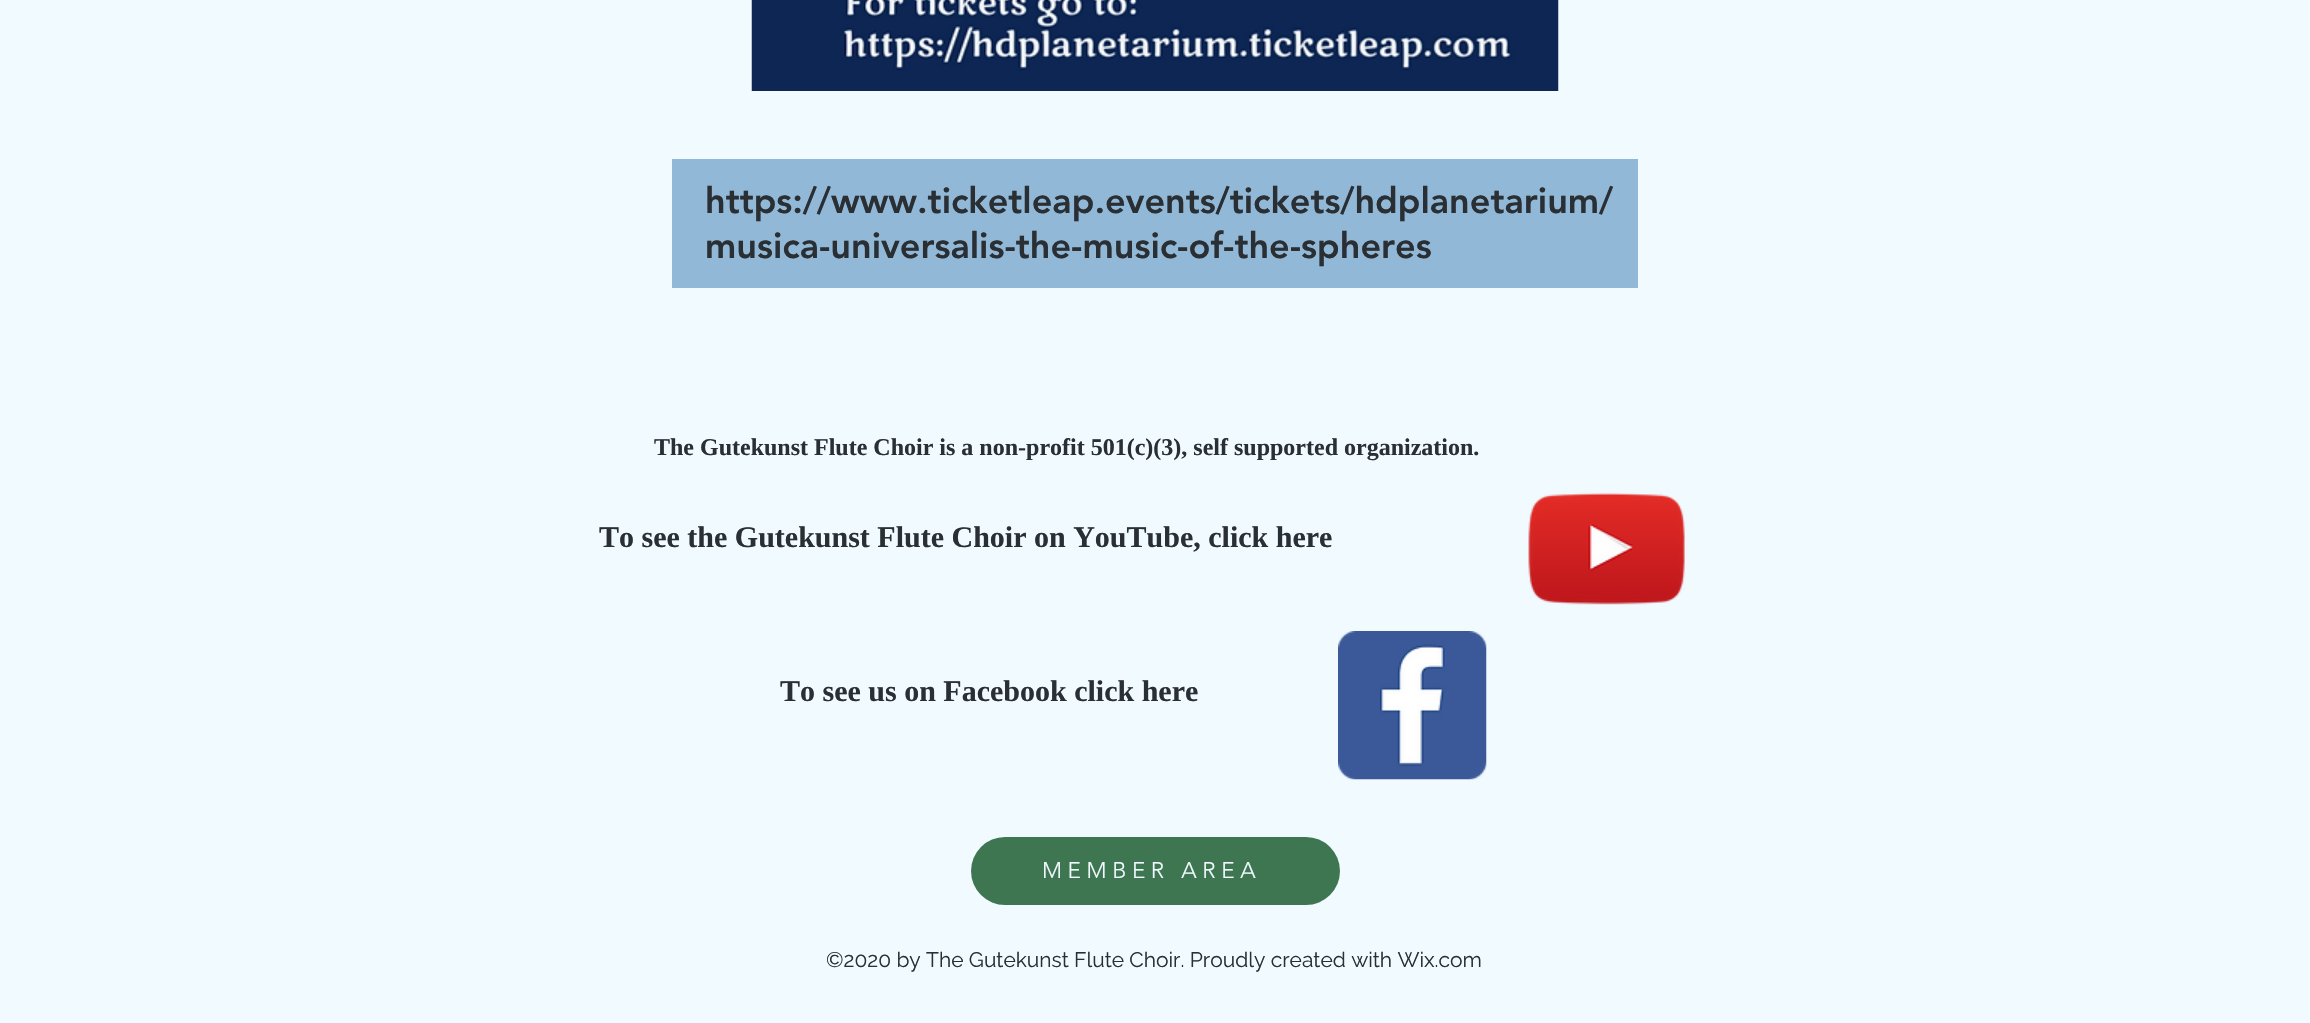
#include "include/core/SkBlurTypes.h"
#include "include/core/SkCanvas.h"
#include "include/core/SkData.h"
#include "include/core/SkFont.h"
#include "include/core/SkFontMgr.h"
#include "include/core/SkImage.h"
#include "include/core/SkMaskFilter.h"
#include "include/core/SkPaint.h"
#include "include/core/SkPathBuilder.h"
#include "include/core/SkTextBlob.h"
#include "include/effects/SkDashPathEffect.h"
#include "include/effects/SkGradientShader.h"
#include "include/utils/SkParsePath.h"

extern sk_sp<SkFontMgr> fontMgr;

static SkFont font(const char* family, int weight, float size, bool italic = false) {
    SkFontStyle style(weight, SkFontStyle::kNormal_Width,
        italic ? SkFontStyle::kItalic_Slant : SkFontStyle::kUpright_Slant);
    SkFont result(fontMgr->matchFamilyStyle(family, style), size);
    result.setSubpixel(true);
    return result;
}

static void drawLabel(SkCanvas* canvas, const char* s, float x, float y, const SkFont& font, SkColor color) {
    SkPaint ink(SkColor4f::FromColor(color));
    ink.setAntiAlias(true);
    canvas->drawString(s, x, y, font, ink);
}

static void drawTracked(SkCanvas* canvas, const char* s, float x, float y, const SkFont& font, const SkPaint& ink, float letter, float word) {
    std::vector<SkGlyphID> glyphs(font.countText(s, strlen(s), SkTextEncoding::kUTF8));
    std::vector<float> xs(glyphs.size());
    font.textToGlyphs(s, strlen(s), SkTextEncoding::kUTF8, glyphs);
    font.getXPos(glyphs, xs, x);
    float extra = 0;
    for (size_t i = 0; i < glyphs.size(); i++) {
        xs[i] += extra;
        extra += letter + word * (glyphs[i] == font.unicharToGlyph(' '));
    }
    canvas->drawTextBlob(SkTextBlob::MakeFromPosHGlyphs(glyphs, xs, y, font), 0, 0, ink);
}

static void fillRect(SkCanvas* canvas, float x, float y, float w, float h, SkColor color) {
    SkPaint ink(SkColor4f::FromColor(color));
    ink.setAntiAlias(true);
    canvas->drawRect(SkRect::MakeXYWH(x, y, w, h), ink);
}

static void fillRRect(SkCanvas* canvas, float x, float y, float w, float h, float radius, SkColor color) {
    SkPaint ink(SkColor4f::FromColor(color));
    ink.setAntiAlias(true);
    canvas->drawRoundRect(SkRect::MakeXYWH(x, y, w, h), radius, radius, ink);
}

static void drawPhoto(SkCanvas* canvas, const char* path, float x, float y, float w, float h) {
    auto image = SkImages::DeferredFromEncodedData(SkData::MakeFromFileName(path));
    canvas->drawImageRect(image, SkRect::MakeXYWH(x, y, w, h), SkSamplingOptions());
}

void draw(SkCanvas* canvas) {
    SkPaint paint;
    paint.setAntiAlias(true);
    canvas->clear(0xFFF0FAFF);
    drawPhoto(canvas, "assets/img1.png", 751, 0, 808, 91);
    fillRect(canvas, 672, 159, 966, 129, 0xFF92B8D8);
    SkFont font1 = font("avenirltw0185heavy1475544", 900, 36);
    drawLabel(canvas, "https://www.ticketleap.events/tickets/hdplanetarium/", 705, 213, font1, 0xFF292F33);
    drawLabel(canvas, "musica-universalis-the-music-of-the-spheres", 705, 258, font1, 0xFF292F33);
    SkFont font2 = font("Liberation Serif", 700, 24);
    drawLabel(canvas, "The Gutekunst Flute Choir is a non-profit 501(c)(3), self supported organization.", 654, 455, font2, 0xFF292F33);
    SkFont font3 = font("Liberation Serif", 700, 30);
    drawLabel(canvas, "To see the Gutekunst Flute Choir on YouTube, click here", 599, 547, font3, 0xFF292F33);
    drawPhoto(canvas, "assets/img2.png", 1528, 492, 157, 113);
    drawLabel(canvas, "To see us on Facebook click here", 780, 701, font3, 0xFF292F33);
    drawPhoto(canvas, "assets/img3.png", 1338, 631, 149, 149);
    fillRRect(canvas, 971, 837, 369, 68, 34, 0xFF3F7652);
    SkFont font4 = font("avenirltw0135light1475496", 300, 22.5f);
    paint.setColor(0xFFF0FAFF);
    drawTracked(canvas, "MEMBER AREA", 1042, 878, font4, paint, 5.6f, 0);
    SkFont font5 = font("Raleway", 400, 21);
    drawLabel(canvas, "©2020 by The Gutekunst Flute Choir. Proudly created with Wix.com", 826, 967, font5, 0xFF292F33);
}
